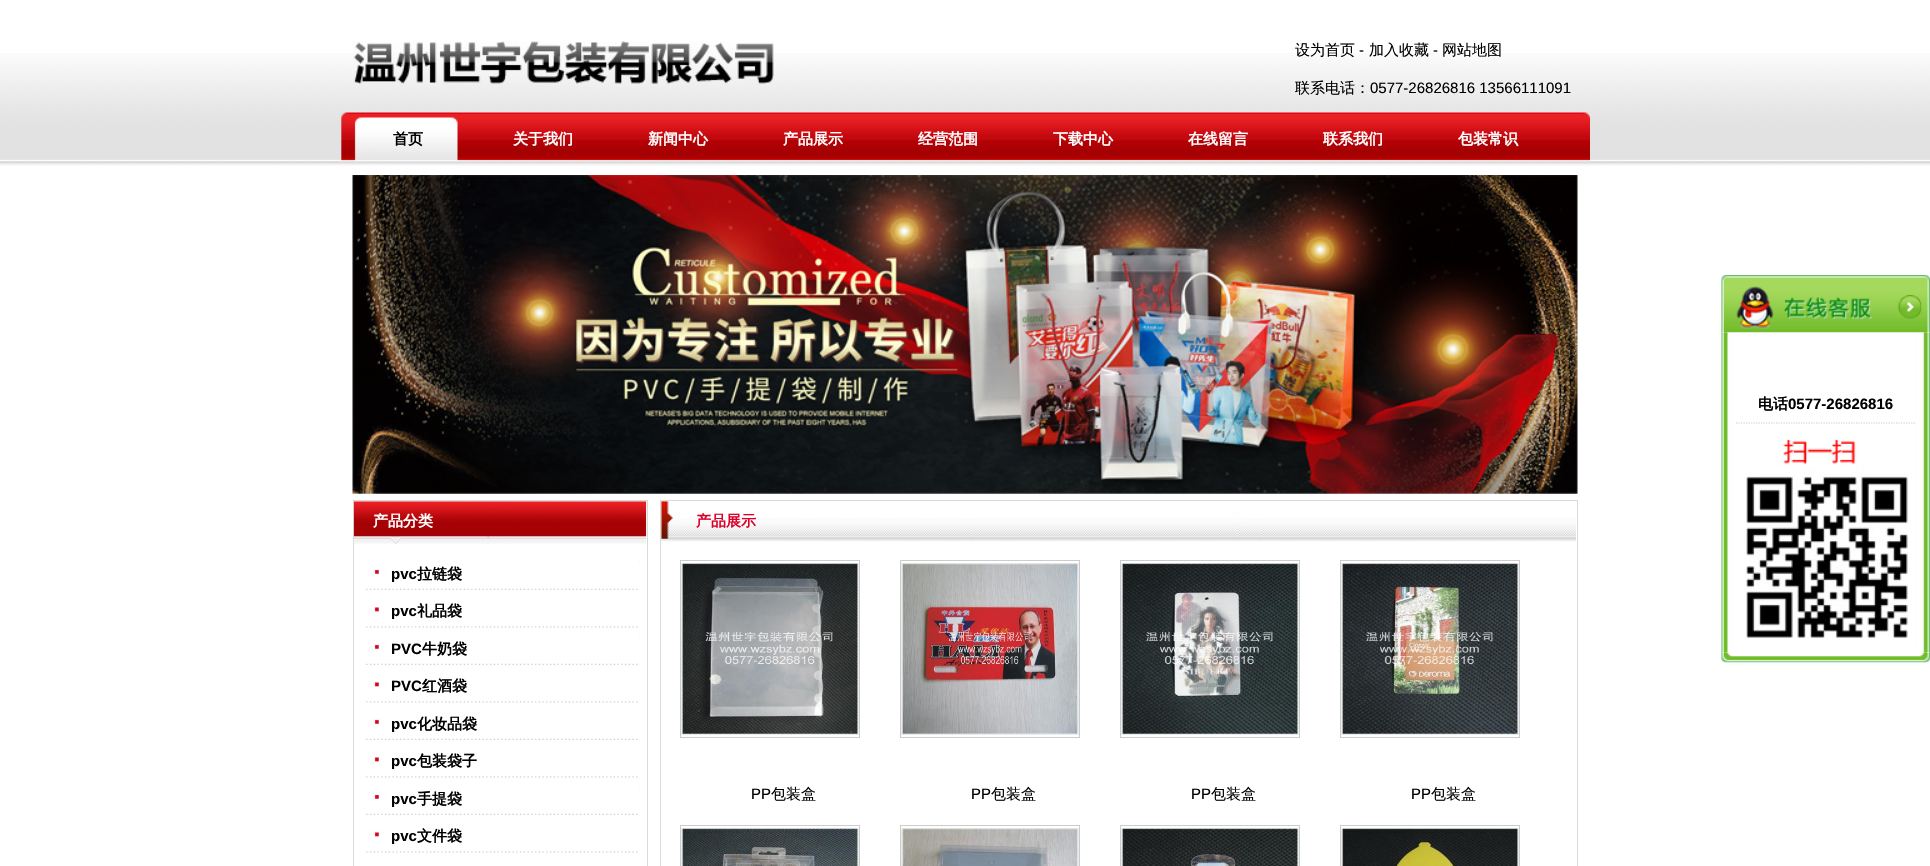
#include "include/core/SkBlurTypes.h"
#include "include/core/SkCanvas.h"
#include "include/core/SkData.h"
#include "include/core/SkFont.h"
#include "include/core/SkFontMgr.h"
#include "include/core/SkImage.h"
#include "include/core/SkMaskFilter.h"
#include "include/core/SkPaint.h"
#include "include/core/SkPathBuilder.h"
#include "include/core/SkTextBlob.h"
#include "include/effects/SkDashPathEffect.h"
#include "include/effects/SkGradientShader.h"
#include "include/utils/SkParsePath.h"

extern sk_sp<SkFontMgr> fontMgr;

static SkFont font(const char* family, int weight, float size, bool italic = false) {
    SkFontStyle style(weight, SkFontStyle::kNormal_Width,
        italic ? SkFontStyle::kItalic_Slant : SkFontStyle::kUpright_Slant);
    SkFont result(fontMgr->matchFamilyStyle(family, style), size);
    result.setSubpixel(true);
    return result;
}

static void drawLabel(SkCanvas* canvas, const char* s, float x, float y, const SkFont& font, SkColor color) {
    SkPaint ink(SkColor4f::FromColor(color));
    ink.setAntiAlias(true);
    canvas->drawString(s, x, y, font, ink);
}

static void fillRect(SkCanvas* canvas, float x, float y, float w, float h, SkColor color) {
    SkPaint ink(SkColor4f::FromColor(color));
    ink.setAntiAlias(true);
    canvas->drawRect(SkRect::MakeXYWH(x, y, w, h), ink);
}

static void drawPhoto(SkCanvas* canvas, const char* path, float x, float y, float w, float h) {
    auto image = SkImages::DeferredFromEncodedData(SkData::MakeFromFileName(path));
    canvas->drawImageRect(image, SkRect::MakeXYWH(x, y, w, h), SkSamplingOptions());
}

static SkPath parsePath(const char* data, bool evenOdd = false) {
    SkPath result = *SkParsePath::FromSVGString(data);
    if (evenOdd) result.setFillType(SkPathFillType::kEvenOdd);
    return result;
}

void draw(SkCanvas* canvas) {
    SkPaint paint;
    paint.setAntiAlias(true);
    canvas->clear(0xFFFFFFFF);
    drawPhoto(canvas, "assets/img1.png", 0, 53, 1930, 113);
    drawPhoto(canvas, "assets/img2.png", 353, 41, 421, 43);
    SkFont font1 = font("WenQuanYi Zen Hei", 500, 15);
    drawLabel(canvas, "设为首页", 1295, 55, font1, 0xFF000000);
    SkFont font2 = font("Liberation Sans", 400, 15);
    drawLabel(canvas, "-", 1359, 55, font2, 0xFF000000);
    drawLabel(canvas, "加入收藏", 1369, 55, font1, 0xFF000000);
    drawLabel(canvas, "-", 1433, 55, font2, 0xFF000000);
    drawLabel(canvas, "网站地图", 1442, 55, font1, 0xFF000000);
    drawLabel(canvas, "联系电话：", 1295, 93, font1, 0xFF000000);
    drawLabel(canvas, "0577-26826816 13566111091", 1370, 93, font2, 0xFF000000);
    drawPhoto(canvas, "assets/img3.png", 340, 112, 1250, 50);
    SkFont font3 = font("WenQuanYi Zen Hei", 700, 15);
    drawLabel(canvas, "首页", 393, 144, font3, 0xFF000000);
    drawLabel(canvas, "关于我们", 513, 144, font3, 0xFFFFFFFF);
    drawLabel(canvas, "新闻中心", 648, 144, font3, 0xFFFFFFFF);
    drawLabel(canvas, "产品展示", 783, 144, font3, 0xFFFFFFFF);
    drawLabel(canvas, "经营范围", 918, 144, font3, 0xFFFFFFFF);
    drawLabel(canvas, "下载中心", 1053, 144, font3, 0xFFFFFFFF);
    drawLabel(canvas, "在线留言", 1188, 144, font3, 0xFFFFFFFF);
    drawLabel(canvas, "联系我们", 1323, 144, font3, 0xFFFFFFFF);
    drawLabel(canvas, "包装常识", 1458, 144, font3, 0xFFFFFFFF);
    drawPhoto(canvas, "assets/img4.png", 352, 175, 1226, 319);
    drawPhoto(canvas, "assets/img5.png", 1721, 275, 209, 58);
    drawPhoto(canvas, "assets/img6.png", 1897, 295, 25, 24);
    drawPhoto(canvas, "assets/img7.png", 1721, 332, 209, 321);
    drawLabel(canvas, "电话", 1758, 409, font3, 0xFF000000);
    SkFont font4 = font("Liberation Sans", 700, 15);
    drawLabel(canvas, "0577-26826816", 1788, 409, font4, 0xFF000000);
    paint.setStroke(true);
    paint.setStrokeWidth(1.2f);
    paint.setColor(0xFFCCCCCC);
    paint.setPathEffect(SkDashPathEffect::Make({{1.25f, 1.25f}}, 0));
    canvas->drawPath(parsePath("M1736 423H1915"), paint);
    paint.setPathEffect(nullptr);
    drawPhoto(canvas, "assets/img8.png", 1746, 438, 162, 200);
    drawPhoto(canvas, "assets/img9.png", 1721, 652, 209, 11);
    paint.setStrokeWidth(1);
    paint.setColor(0xFFD9D9D9);
    canvas->drawRect(SkRect::MakeXYWH(353.5f, 500.5f, 294, 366), paint);
    drawPhoto(canvas, "assets/img10.png", 353, 501, 294, 43);
    drawLabel(canvas, "产品分类", 373, 526, font3, 0xFFFFFFFF);
    drawPhoto(canvas, "assets/img11.png", 366, 560, 274, 30);
    drawLabel(canvas, "pvc", 391, 579, font4, 0xFF000000);
    drawLabel(canvas, "拉链袋", 417, 579, font3, 0xFF000000);
    drawPhoto(canvas, "assets/img12.png", 366, 598, 274, 30);
    drawLabel(canvas, "pvc", 391, 616, font4, 0xFF000000);
    drawLabel(canvas, "礼品袋", 417, 616, font3, 0xFF000000);
    drawPhoto(canvas, "assets/img11.png", 366, 635, 274, 30);
    drawLabel(canvas, "PVC", 391, 654, font4, 0xFF000000);
    drawLabel(canvas, "牛奶袋", 422, 654, font3, 0xFF000000);
    drawPhoto(canvas, "assets/img12.png", 366, 673, 274, 30);
    drawLabel(canvas, "PVC", 391, 691, font4, 0xFF000000);
    drawLabel(canvas, "红酒袋", 422, 691, font3, 0xFF000000);
    drawPhoto(canvas, "assets/img11.png", 366, 710, 274, 30);
    drawLabel(canvas, "pvc", 391, 729, font4, 0xFF000000);
    drawLabel(canvas, "化妆品袋", 417, 729, font3, 0xFF000000);
    drawPhoto(canvas, "assets/img12.png", 366, 748, 274, 30);
    drawLabel(canvas, "pvc", 391, 766, font4, 0xFF000000);
    drawLabel(canvas, "包装袋子", 417, 766, font3, 0xFF000000);
    drawPhoto(canvas, "assets/img13.png", 366, 785, 274, 30);
    drawLabel(canvas, "pvc", 391, 804, font4, 0xFF000000);
    drawLabel(canvas, "手提袋", 417, 804, font3, 0xFF000000);
    drawPhoto(canvas, "assets/img12.png", 366, 823, 274, 30);
    drawLabel(canvas, "pvc", 391, 841, font4, 0xFF000000);
    drawLabel(canvas, "文件袋", 417, 841, font3, 0xFF000000);
    fillRect(canvas, 639, 860, 1, 1, 0xFFF9F9F9);
    canvas->drawRect(SkRect::MakeXYWH(660.5f, 500.5f, 917, 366), paint);
    drawPhoto(canvas, "assets/img14.png", 661, 501, 915, 41);
    drawLabel(canvas, "产品展示", 696, 526, font3, 0xFFDB0029);
    paint.setColor(0xFFCCCCCC);
    canvas->drawRect(SkRect::MakeXYWH(680.5f, 560.5f, 179, 177), paint);
    paint.setColor(0xFFEAEDEE);
    canvas->drawRect(SkRect::MakeXYWH(681.5f, 563.5f, 177, 171), paint);
    drawPhoto(canvas, "assets/img15.png", 682, 563, 176, 171);
    drawLabel(canvas, "PP", 751, 799, font2, 0xFF000000);
    drawLabel(canvas, "包装盒", 771, 799, font1, 0xFF000000);
    paint.setColor(0xFFCCCCCC);
    canvas->drawRect(SkRect::MakeXYWH(900.5f, 560.5f, 179, 177), paint);
    paint.setColor(0xFFEAEDEE);
    canvas->drawRect(SkRect::MakeXYWH(901.5f, 563.5f, 177, 171), paint);
    drawPhoto(canvas, "assets/img16.png", 902, 563, 176, 171);
    drawLabel(canvas, "PP", 971, 799, font2, 0xFF000000);
    drawLabel(canvas, "包装盒", 991, 799, font1, 0xFF000000);
    paint.setColor(0xFFCCCCCC);
    canvas->drawRect(SkRect::MakeXYWH(1120.5f, 560.5f, 179, 177), paint);
    paint.setColor(0xFFEAEDEE);
    canvas->drawRect(SkRect::MakeXYWH(1121.5f, 563.5f, 177, 171), paint);
    drawPhoto(canvas, "assets/img17.png", 1122, 563, 176, 171);
    drawLabel(canvas, "PP", 1191, 799, font2, 0xFF000000);
    drawLabel(canvas, "包装盒", 1211, 799, font1, 0xFF000000);
    paint.setColor(0xFFCCCCCC);
    canvas->drawRect(SkRect::MakeXYWH(1340.5f, 560.5f, 179, 177), paint);
    paint.setColor(0xFFEAEDEE);
    canvas->drawRect(SkRect::MakeXYWH(1341.5f, 563.5f, 177, 171), paint);
    drawPhoto(canvas, "assets/img18.png", 1342, 563, 176, 171);
    drawLabel(canvas, "PP", 1411, 799, font2, 0xFF000000);
    drawLabel(canvas, "包装盒", 1431, 799, font1, 0xFF000000);
    paint.setColor(0xFFCCCCCC);
    canvas->drawRect(SkRect::MakeXYWH(680.5f, 825.5f, 179, 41), paint);
    paint.setColor(0xFFEAEDEE);
    canvas->drawRect(SkRect::MakeXYWH(681.5f, 828.5f, 177, 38), paint);
    drawPhoto(canvas, "assets/img19.png", 682, 828, 176, 38);
    paint.setColor(0xFFCCCCCC);
    canvas->drawRect(SkRect::MakeXYWH(900.5f, 825.5f, 179, 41), paint);
    paint.setColor(0xFFEAEDEE);
    canvas->drawRect(SkRect::MakeXYWH(901.5f, 828.5f, 177, 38), paint);
    drawPhoto(canvas, "assets/img20.png", 902, 828, 176, 38);
    paint.setColor(0xFFCCCCCC);
    canvas->drawRect(SkRect::MakeXYWH(1120.5f, 825.5f, 179, 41), paint);
    paint.setColor(0xFFEAEDEE);
    canvas->drawRect(SkRect::MakeXYWH(1121.5f, 828.5f, 177, 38), paint);
    drawPhoto(canvas, "assets/img21.png", 1122, 828, 176, 38);
    paint.setColor(0xFFCCCCCC);
    canvas->drawRect(SkRect::MakeXYWH(1340.5f, 825.5f, 179, 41), paint);
    paint.setColor(0xFFEAEDEE);
    canvas->drawRect(SkRect::MakeXYWH(1341.5f, 828.5f, 177, 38), paint);
    drawPhoto(canvas, "assets/img22.png", 1342, 828, 176, 38);
}
